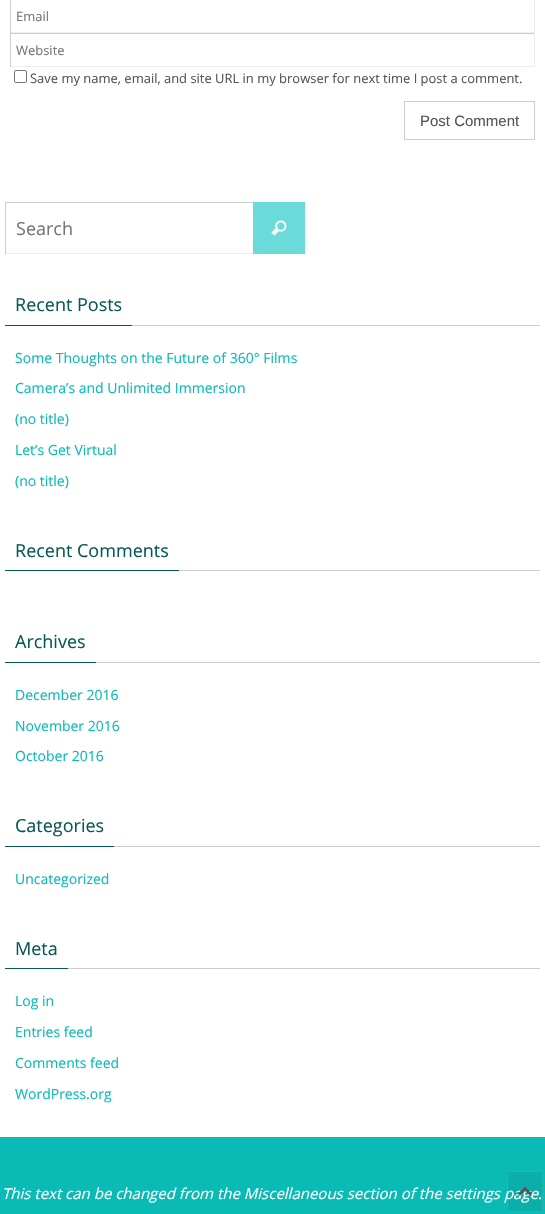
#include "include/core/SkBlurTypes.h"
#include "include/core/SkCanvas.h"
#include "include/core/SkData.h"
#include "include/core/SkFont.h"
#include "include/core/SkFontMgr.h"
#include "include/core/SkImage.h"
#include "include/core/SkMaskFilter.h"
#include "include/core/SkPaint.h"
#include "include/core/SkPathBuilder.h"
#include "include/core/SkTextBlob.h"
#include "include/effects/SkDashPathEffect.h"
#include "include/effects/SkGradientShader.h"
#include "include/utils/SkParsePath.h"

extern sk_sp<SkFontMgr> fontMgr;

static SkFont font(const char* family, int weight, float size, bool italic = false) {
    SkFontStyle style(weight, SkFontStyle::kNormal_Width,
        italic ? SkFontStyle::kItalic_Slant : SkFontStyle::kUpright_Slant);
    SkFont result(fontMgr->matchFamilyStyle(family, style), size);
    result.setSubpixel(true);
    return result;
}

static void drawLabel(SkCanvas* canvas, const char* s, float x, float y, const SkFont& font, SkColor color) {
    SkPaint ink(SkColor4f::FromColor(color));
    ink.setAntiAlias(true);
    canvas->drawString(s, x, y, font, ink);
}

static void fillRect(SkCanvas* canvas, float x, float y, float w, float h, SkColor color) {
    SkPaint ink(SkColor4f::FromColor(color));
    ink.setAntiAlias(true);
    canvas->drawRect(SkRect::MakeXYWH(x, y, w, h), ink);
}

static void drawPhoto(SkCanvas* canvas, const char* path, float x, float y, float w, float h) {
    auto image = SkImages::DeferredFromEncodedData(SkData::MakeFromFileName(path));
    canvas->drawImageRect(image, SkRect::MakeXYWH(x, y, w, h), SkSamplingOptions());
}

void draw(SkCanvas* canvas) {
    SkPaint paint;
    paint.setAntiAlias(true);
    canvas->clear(0xFFFFFFFF);
    fillRect(canvas, 534, 0, 1, 33, 0xFFEEEEEE);
    fillRect(canvas, 10, 32, 525, 1, 0xFFEEEEEE);
    fillRect(canvas, 10, 0, 1, 33, 0xFFCCCCCC);
    SkFont font1 = font("Open Sans", 400, 12.95f);
    drawLabel(canvas, "Email", 16, 21, font1, 0xFF757575);
    fillRect(canvas, 10, 33, 525, 1, 0xFFCCCCCC);
    fillRect(canvas, 534, 33, 1, 34, 0xFFEEEEEE);
    fillRect(canvas, 10, 66, 525, 1, 0xFFEEEEEE);
    fillRect(canvas, 10, 33, 1, 34, 0xFFCCCCCC);
    drawLabel(canvas, "Website", 16, 55, font1, 0xFF757575);
    paint.setStroke(true);
    paint.setStrokeWidth(1);
    paint.setColor(0xFF767676);
    canvas->drawRoundRect(SkRect::MakeXYWH(14.5f, 70.5f, 12, 12), 1.5f, 1.5f, paint);
    drawLabel(canvas, "Save my name, email, and site URL in my browser for next time I post a comment.", 30, 83, font1, 0xFF555555);
    paint.setColor(0xFFCCCCCC);
    canvas->drawRect(SkRect::MakeXYWH(404.5f, 101.5f, 130, 38), paint);
    SkFont font2 = font("Liberation Sans", 400, 15);
    drawLabel(canvas, "Post Comment", 420, 126, font2, 0xFF555555);
    fillRect(canvas, 253, 202, 52, 52, 0xFF6ADBD8);
    fillRect(canvas, 5, 202, 248, 1, 0xFFCCCCCC);
    fillRect(canvas, 5, 253, 248, 1, 0xFFEEEEEE);
    fillRect(canvas, 5, 202, 1, 52, 0xFFCCCCCC);
    SkFont font3 = font("Open Sans", 400, 18);
    drawLabel(canvas, "Search", 16, 235, font3, 0xFF757575);
    drawPhoto(canvas, "assets/img1.png", 271, 220, 16, 16);
    fillRect(canvas, 132, 325, 408, 1, 0xFFCCCCCC);
    fillRect(canvas, 5, 325, 127, 1, 0xFF075957);
    drawLabel(canvas, "Recent Posts", 15, 311, font3, 0xFF075957);
    SkFont font4 = font("Open Sans", 400, 14);
    drawLabel(canvas, "Some Thoughts on the Future of 360° Films", 15, 363, font4, 0xFF0ABAB5);
    drawLabel(canvas, "Camera’s and Unlimited Immersion", 15, 393, font4, 0xFF0ABAB5);
    drawLabel(canvas, "(no title)", 15, 424, font4, 0xFF0ABAB5);
    drawLabel(canvas, "Let’s Get Virtual", 15, 455, font4, 0xFF0ABAB5);
    drawLabel(canvas, "(no title)", 15, 486, font4, 0xFF0ABAB5);
    fillRect(canvas, 179, 570, 361, 1, 0xFFCCCCCC);
    fillRect(canvas, 5, 570, 174, 1, 0xFF075957);
    drawLabel(canvas, "Recent Comments", 15, 557, font3, 0xFF075957);
    fillRect(canvas, 96, 662, 444, 1, 0xFFCCCCCC);
    fillRect(canvas, 5, 662, 91, 1, 0xFF075957);
    drawLabel(canvas, "Archives", 15, 648, font3, 0xFF075957);
    drawLabel(canvas, "December 2016", 15, 700, font4, 0xFF0ABAB5);
    drawLabel(canvas, "November 2016", 15, 731, font4, 0xFF0ABAB5);
    drawLabel(canvas, "October 2016", 15, 761, font4, 0xFF0ABAB5);
    fillRect(canvas, 114, 846, 426, 1, 0xFFCCCCCC);
    fillRect(canvas, 5, 846, 109, 1, 0xFF075957);
    drawLabel(canvas, "Categories", 15, 832, font3, 0xFF075957);
    drawLabel(canvas, "Uncategorized", 15, 884, font4, 0xFF0ABAB5);
    fillRect(canvas, 68, 968, 472, 1, 0xFFCCCCCC);
    fillRect(canvas, 5, 968, 63, 1, 0xFF075957);
    drawLabel(canvas, "Meta", 15, 955, font3, 0xFF075957);
    drawLabel(canvas, "Log in", 15, 1006, font4, 0xFF0ABAB5);
    drawLabel(canvas, "Entries feed", 15, 1037, font4, 0xFF0ABAB5);
    drawLabel(canvas, "Comments feed", 15, 1068, font4, 0xFF0ABAB5);
    drawLabel(canvas, "WordPress.org", 15, 1099, font4, 0xFF0ABAB5);
    fillRect(canvas, 0, 1137, 545, 77, 0xFF0ABAB5);
    fillRect(canvas, 507, 1171, 36, 41, 0x0F000000);
    SkFont font5 = font("Open Sans", 400, 15, true);
    drawLabel(canvas, "This text can be changed from the Miscellaneous section of the settings page.", 2, 1199, font5, 0xFFFFFFFF);
    paint.setColor(0x1AFFFFFF);
    canvas->drawRect(SkRect::MakeXYWH(507.5f, 1171.5f, 35, 40), paint);
    drawPhoto(canvas, "assets/img2.png", 518, 1186, 14, 10);
}
